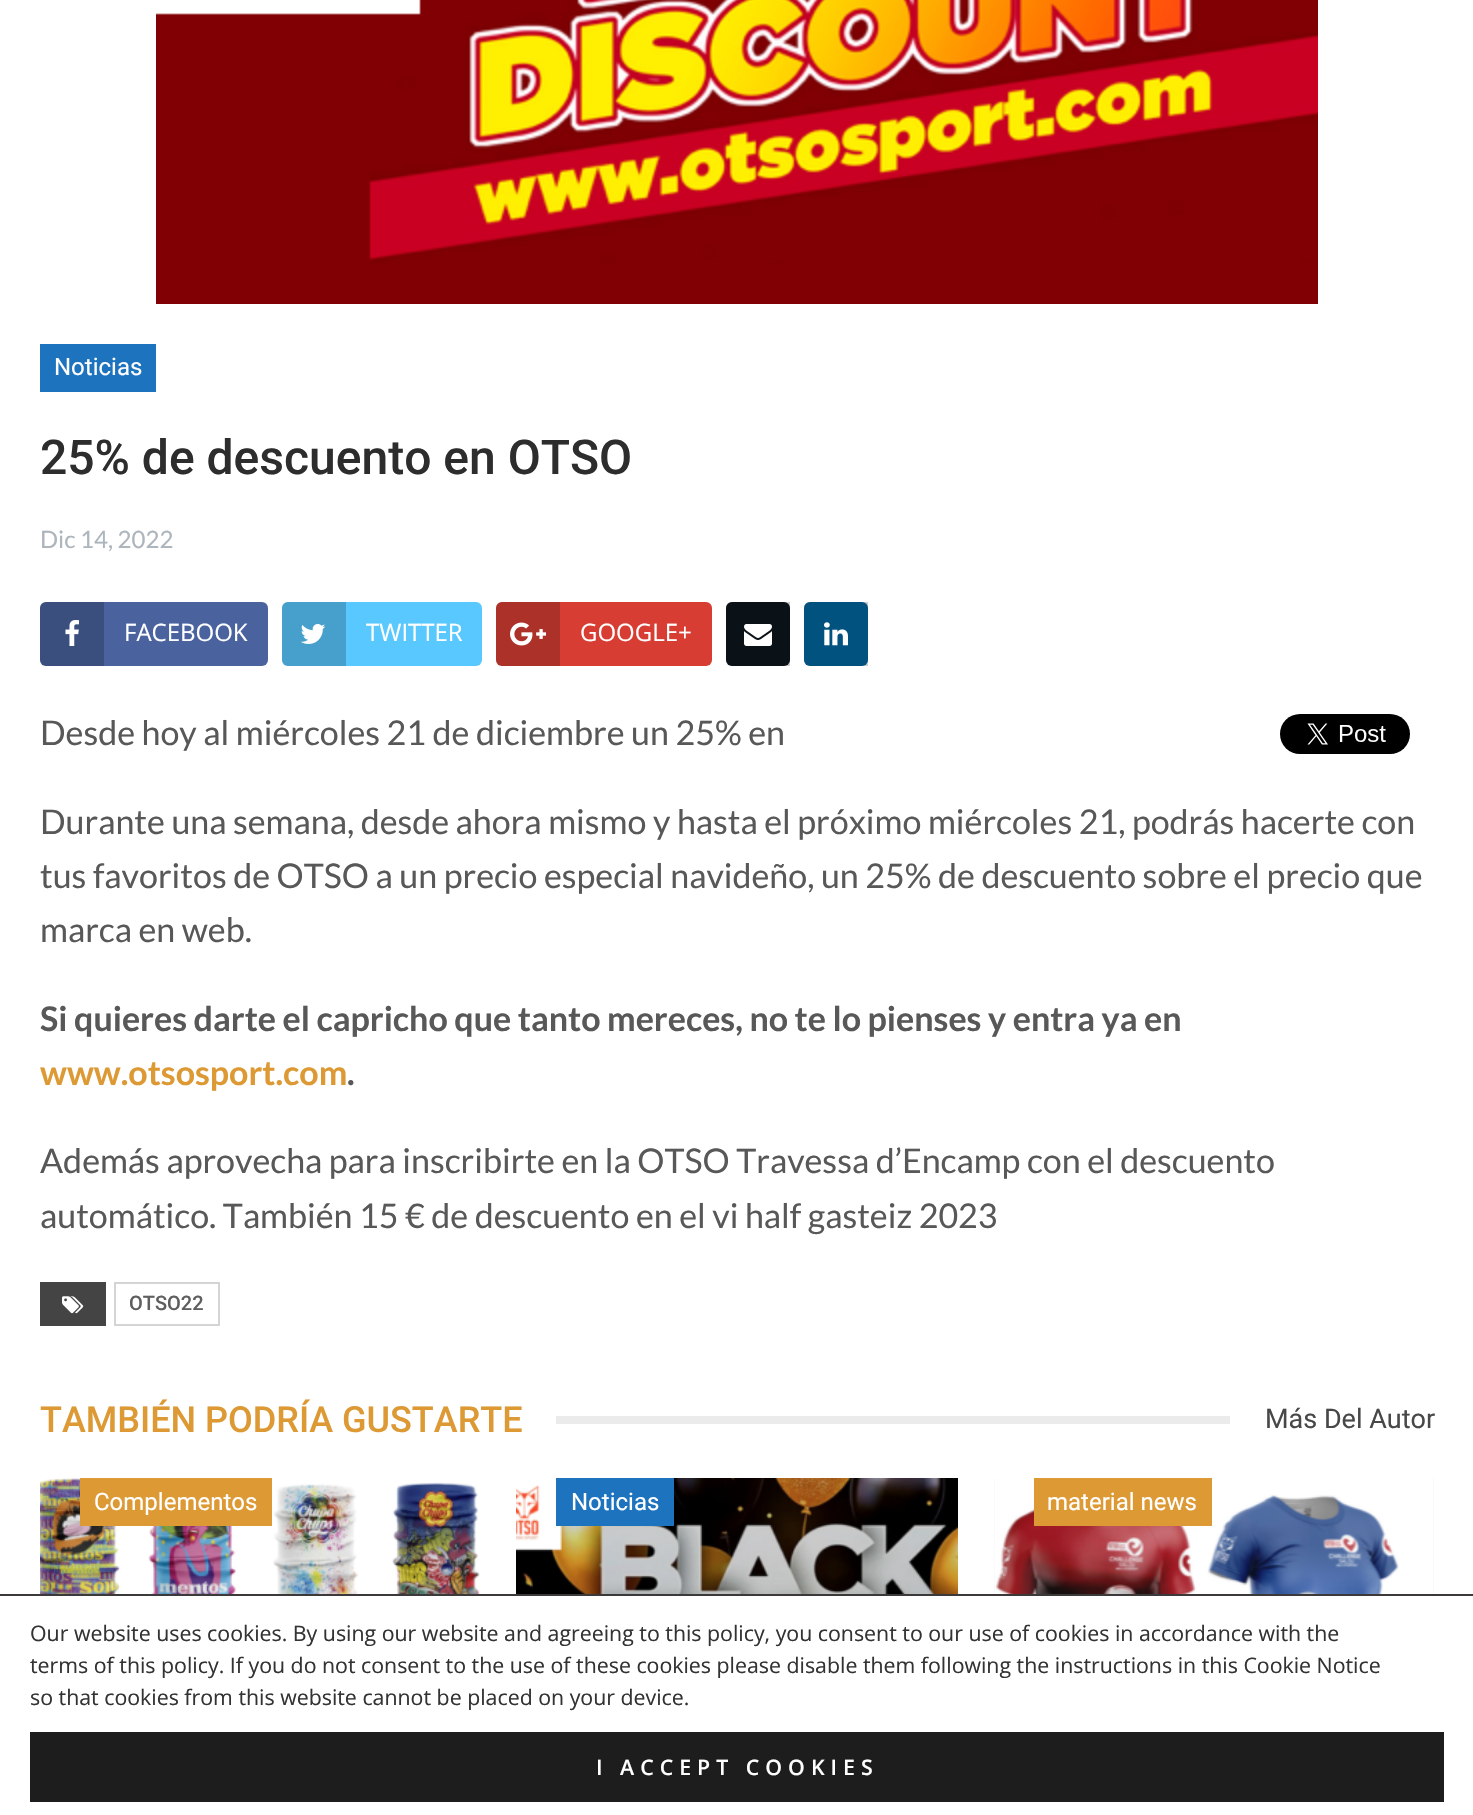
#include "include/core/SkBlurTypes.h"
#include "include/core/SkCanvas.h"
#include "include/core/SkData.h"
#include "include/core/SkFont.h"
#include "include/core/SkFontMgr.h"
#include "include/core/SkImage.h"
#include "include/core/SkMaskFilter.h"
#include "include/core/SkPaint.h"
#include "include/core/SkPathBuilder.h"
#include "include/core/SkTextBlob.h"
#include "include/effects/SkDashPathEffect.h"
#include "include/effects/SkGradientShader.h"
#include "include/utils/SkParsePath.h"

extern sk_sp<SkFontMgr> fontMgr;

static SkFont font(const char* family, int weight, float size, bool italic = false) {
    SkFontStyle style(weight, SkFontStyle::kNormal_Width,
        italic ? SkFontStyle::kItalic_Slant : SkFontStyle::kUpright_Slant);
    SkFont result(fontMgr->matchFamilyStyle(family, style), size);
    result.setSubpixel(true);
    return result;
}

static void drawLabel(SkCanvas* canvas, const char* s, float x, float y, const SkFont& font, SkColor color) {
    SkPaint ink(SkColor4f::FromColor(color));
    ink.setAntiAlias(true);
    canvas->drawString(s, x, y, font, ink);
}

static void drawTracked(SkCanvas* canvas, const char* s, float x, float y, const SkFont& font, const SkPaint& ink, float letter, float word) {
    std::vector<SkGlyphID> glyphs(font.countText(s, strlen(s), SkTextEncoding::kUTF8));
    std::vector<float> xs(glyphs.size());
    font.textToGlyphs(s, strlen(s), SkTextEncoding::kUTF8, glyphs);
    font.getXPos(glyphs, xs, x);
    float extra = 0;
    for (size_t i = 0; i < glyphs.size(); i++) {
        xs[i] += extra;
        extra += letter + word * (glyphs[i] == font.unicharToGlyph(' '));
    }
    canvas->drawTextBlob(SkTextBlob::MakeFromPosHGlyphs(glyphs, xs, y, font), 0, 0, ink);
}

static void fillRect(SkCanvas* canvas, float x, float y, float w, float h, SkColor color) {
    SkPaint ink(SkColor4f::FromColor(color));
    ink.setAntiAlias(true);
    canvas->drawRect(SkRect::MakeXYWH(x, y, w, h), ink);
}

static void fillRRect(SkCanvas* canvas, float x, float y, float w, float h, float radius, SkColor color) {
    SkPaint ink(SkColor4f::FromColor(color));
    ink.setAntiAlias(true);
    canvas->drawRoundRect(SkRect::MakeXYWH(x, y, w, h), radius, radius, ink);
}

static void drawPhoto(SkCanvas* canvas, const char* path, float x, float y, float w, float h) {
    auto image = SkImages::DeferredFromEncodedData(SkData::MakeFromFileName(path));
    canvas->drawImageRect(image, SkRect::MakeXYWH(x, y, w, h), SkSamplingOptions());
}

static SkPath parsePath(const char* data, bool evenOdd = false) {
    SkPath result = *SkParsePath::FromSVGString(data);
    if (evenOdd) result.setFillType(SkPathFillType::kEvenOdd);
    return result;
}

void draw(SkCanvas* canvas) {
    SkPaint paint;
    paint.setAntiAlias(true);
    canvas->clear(0xFFFFFFFF);
    drawPhoto(canvas, "assets/img1.png", 156, 0, 1162, 304);
    fillRect(canvas, 40, 344, 116, 48, 0xFF1E73BE);
    SkFont font1 = font("Roboto", 400, 24);
    drawLabel(canvas, "Noticias", 54, 375, font1, 0xFFFFFFFF);
    SkFont font2 = font("Roboto", 500, 48);
    drawLabel(canvas, "25% de descuento en OTSO", 40, 474, font2, 0xFF2D2D2D);
    SkFont font3 = font("Lato", 400, 24);
    drawLabel(canvas, "Dic 14, 2022", 40, 548, font3, 0xFFADB5BD);
    fillRRect(canvas, 40, 602, 228, 64, 6, 0xFF4A639F);
    paint.setColor(0x33000000);
    canvas->drawPath(parsePath("M46 602H104V666H46C42.5 666 40 663.5 40 660V608C40 604.5 42.5 602 46 602Z"), paint);
    drawPhoto(canvas, "assets/img2.png", 65, 620, 14, 26);
    SkFont font4 = font("Open Sans", 400, 24);
    drawLabel(canvas, "FACEBOOK", 124, 641, font4, 0xFFFFFFFF);
    fillRRect(canvas, 282, 602, 200, 64, 6, 0xFF59C8FF);
    canvas->drawPath(parsePath("M288 602H346V666H288C284.5 666 282 663.5 282 660V608C282 604.5 284.5 602 288 602Z"), paint);
    drawPhoto(canvas, "assets/img3.png", 300, 624, 26, 20);
    drawLabel(canvas, "TWITTER", 366, 641, font4, 0xFFFFFFFF);
    fillRRect(canvas, 496, 602, 216, 64, 6, 0xFFD73D32);
    canvas->drawPath(parsePath("M502 602H560V666H502C498.5 666 496 663.5 496 660V608C496 604.5 498.5 602 502 602Z"), paint);
    drawPhoto(canvas, "assets/img4.png", 510, 622, 36, 24);
    drawLabel(canvas, "GOOGLE+", 580, 641, font4, 0xFFFFFFFF);
    fillRRect(canvas, 726, 602, 64, 64, 6, 0xFF0C151C);
    canvas->drawPath(parsePath("M732 602H790V666H732C728.5 666 726 663.5 726 660V608C726 604.5 728.5 602 732 602Z"), paint);
    drawPhoto(canvas, "assets/img5.png", 744, 624, 28, 22);
    fillRRect(canvas, 804, 602, 64, 64, 6, 0xFF0266A0);
    canvas->drawPath(parsePath("M810 602H868V666H810C806.5 666 804 663.5 804 660V608C804 604.5 806.5 602 810 602Z"), paint);
    drawPhoto(canvas, "assets/img6.png", 824, 622, 24, 24);
    SkFont font5 = font("Lato", 400, 34);
    drawLabel(canvas, "Desde hoy al miércoles 21 de diciembre un 25% en", 40, 745, font5, 0xFF585858);
    drawPhoto(canvas, "assets/img7.png", 1280, 714, 130, 40);
    drawLabel(canvas, "Durante una semana, desde ahora mismo y hasta el próximo miércoles 21, podrás hacerte con", 40, 834, font5, 0xFF585858);
    drawLabel(canvas, "tus favoritos de OTSO a un precio especial navideño, un 25% de descuento sobre el precio que", 40, 888, font5, 0xFF585858);
    drawLabel(canvas, "marca en web.", 40, 942, font5, 0xFF585858);
    SkFont font6 = font("Lato", 700, 34);
    drawLabel(canvas, "Si quieres darte el capricho que tanto mereces, no te lo pienses y entra ya en", 40, 1031, font6, 0xFF585858);
    drawLabel(canvas, "www.otsosport.com", 40, 1085, font6, 0xFFDD9933);
    drawLabel(canvas, ".", 347, 1085, font6, 0xFF585858);
    drawLabel(canvas, "Además aprovecha para inscribirte en la OTSO Travessa d’Encamp con el descuento", 40, 1173, font5, 0xFF585858);
    drawLabel(canvas, "automático. También 15 € de descuento en el vi half gasteiz 2023", 40, 1228, font5, 0xFF585858);
    fillRect(canvas, 40, 1282, 66, 44, 0xFF444444);
    drawPhoto(canvas, "assets/img8.png", 62, 1296, 22, 18);
    paint.setStroke(true);
    paint.setStrokeWidth(2);
    paint.setColor(0xFFD4D4D4);
    canvas->drawRect(SkRect::MakeXYWH(115, 1283, 104, 42), paint);
    SkFont font7 = font("Roboto", 500, 20);
    drawLabel(canvas, "OTSO22", 129, 1310, font7, 0xFF5F5F5F);
    SkFont font8 = font("Roboto", 500, 36);
    drawLabel(canvas, "TAMBIÉN PODRÍA GUSTARTE", 40, 1432, font8, 0xFFDD9933);
    fillRect(canvas, 556, 1416, 674, 8, 0xFFEBEBEB);
    SkFont font9 = font("Roboto", 400, 27);
    drawLabel(canvas, "Más Del Autor", 1265, 1428, font9, 0xFF484848);
    drawPhoto(canvas, "assets/img9.png", 40, 1478, 440, 116);
    fillRect(canvas, 80, 1478, 192, 48, 0xFFDD9933);
    drawLabel(canvas, "Complementos", 94, 1510, font1, 0xFFFFFFFF);
    drawPhoto(canvas, "assets/img10.png", 516, 1478, 442, 116);
    fillRect(canvas, 556, 1478, 118, 48, 0xFF1E73BE);
    drawLabel(canvas, "Noticias", 571, 1510, font1, 0xFFFFFFFF);
    fillRect(canvas, 994, 1478, 440, 116, 0xFFEEEEEE);
    drawPhoto(canvas, "assets/img11.png", 994, 1478, 440, 116);
    fillRect(canvas, 1034, 1478, 178, 48, 0xFFDD9933);
    drawLabel(canvas, "material news", 1047, 1510, font1, 0xFFFFFFFF);
    fillRect(canvas, 0, 1594, 1473, 2, 0xFF3B3939);
    SkFont font10 = font("Open Sans", 400, 21.33f);
    drawLabel(canvas, "Our website uses cookies. By using our website and agreeing to this policy, you consent to our use of cookies in accordance with the", 30, 1641, font10, 0xFF333333);
    drawLabel(canvas, "terms of this policy. If you do not consent to the use of these cookies please disable them following the instructions in this Cookie Notice", 30, 1673, font10, 0xFF333333);
    drawLabel(canvas, "so that cookies from this website cannot be placed on your device.", 30, 1705, font10, 0xFF333333);
    fillRect(canvas, 30, 1732, 1414, 70, 0xFF1D1D1D);
    SkFont font11 = font("Open Sans", 600, 21.33f);
    paint.setStroke(false);
    paint.setColor(0xFFFFFFFF);
    drawTracked(canvas, "I ACCEPT COOKIES", 596, 1775, font11, paint, 6, 0);
}
